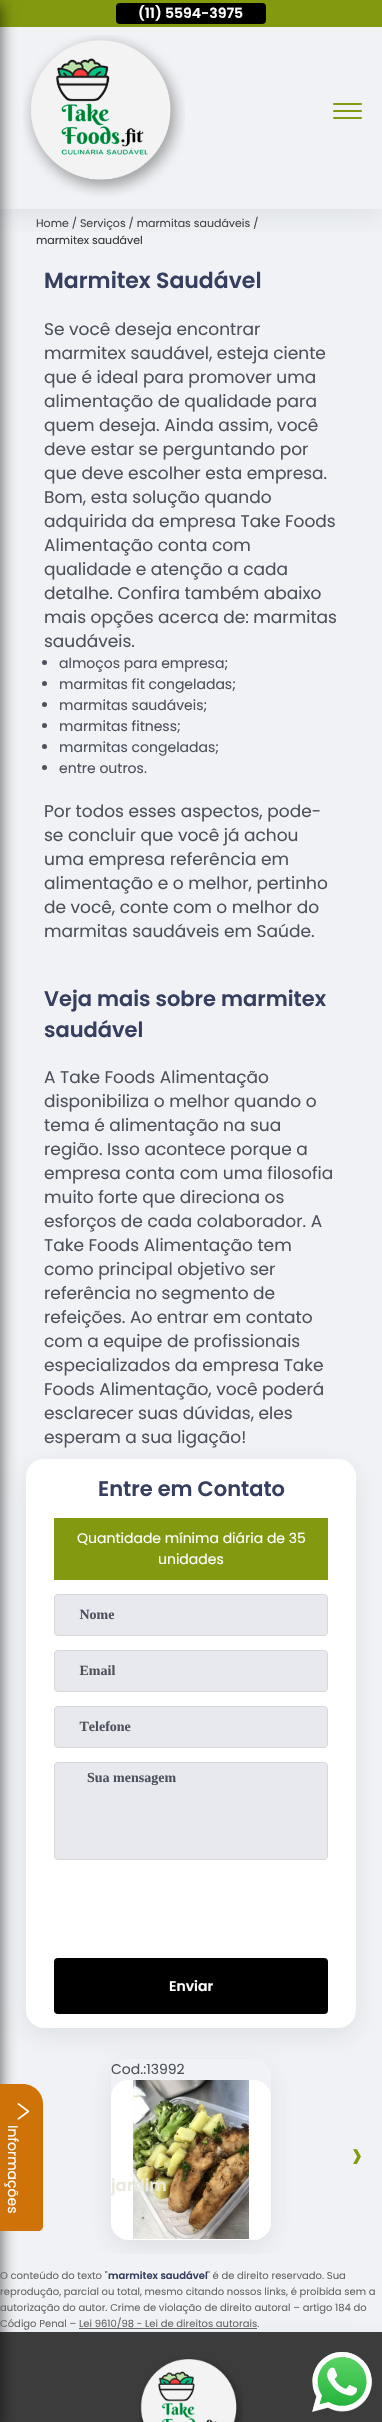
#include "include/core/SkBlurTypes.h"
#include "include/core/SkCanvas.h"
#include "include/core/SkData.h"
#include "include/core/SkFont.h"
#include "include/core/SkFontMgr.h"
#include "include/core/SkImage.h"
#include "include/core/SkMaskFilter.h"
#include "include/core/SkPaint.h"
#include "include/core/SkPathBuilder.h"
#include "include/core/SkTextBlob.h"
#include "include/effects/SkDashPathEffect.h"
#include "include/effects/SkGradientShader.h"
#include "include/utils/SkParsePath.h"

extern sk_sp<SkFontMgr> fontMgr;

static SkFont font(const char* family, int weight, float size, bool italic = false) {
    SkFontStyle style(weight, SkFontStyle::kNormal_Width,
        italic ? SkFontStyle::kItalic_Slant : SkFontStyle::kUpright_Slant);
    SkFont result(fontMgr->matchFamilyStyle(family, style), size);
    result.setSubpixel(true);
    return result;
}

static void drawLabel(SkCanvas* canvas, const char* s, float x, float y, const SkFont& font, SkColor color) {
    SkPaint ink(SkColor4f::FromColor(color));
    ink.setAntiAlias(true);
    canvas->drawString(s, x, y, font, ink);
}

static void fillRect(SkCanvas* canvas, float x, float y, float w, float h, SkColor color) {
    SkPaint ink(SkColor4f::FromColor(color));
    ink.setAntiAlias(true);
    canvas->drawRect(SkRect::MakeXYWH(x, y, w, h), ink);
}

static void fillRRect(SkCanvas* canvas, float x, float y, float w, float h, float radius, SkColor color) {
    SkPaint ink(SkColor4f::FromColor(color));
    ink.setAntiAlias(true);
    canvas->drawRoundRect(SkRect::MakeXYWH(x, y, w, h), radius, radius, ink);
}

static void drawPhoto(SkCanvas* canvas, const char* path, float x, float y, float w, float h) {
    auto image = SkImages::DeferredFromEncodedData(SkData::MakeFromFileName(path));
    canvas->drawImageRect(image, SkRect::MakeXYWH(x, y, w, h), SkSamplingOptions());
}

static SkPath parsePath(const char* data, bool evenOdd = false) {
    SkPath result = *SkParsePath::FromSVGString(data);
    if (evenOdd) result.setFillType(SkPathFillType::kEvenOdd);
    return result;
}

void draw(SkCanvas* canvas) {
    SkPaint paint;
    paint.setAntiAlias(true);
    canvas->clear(0xFFF0F2F5);
    canvas->save();
    canvas->clipRect(SkRect::MakeXYWH(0, 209, 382, 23));
    paint.setColor(0x33959DA5);
    paint.setMaskFilter(SkMaskFilter::MakeBlur(kNormal_SkBlurStyle, 12));
    canvas->drawRect(SkRect::MakeXYWH(0, 8, 382, 209), paint);
    paint.setMaskFilter(nullptr);
    canvas->restore();
    fillRect(canvas, 0, 0, 382, 27, 0xFF829910);
    drawPhoto(canvas, "assets/img1.png", 23, 35, 162, 161);
    paint.setMaskFilter(SkMaskFilter::MakeBlur(kNormal_SkBlurStyle, 12));
    canvas->drawRect(SkRect::MakeXYWH(0, 2340, 382, 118), paint);
    paint.setMaskFilter(nullptr);
    fillRect(canvas, 0, 2332, 382, 90, 0xFF3C3C3C);
    paint.setColor(0x99000000);
    paint.setMaskFilter(SkMaskFilter::MakeBlur(kNormal_SkBlurStyle, 7.5f));
    canvas->drawRect(SkRect::MakeXYWH(-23, 4, 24, 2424), paint);
    paint.setMaskFilter(nullptr);
    fillRRect(canvas, 116, 3, 150, 21, 4, 0xFF000000);
    SkFont font1 = font("Poppins", 600, 14);
    drawLabel(canvas, "(11) 5594-3975", 138, 18, font1, 0xFFFFFFFF);
    fillRRect(canvas, 333, 103, 29, 2, 1, 0xFF829910);
    fillRRect(canvas, 333, 110, 29, 2, 1, 0xFF829910);
    fillRRect(canvas, 333, 117, 29, 2, 1, 0xFF829910);
    SkFont font2 = font("Poppins", 400, 11);
    drawLabel(canvas, "Home / Serviços / marmitas saudáveis /", 36, 227, font2, 0xFF444444);
    drawLabel(canvas, "marmitex saudável", 36, 244, font2, 0xFF333333);
    SkFont font3 = font("Poppins", 600, 22);
    drawLabel(canvas, "Marmitex Saudável", 44, 288, font3, 0xFF363F5F);
    SkFont font4 = font("Poppins", 400, 17);
    drawLabel(canvas, "Se você deseja encontrar", 44, 335, font4, 0xFF4D515C);
    drawLabel(canvas, "marmitex saudável, esteja ciente", 44, 359, font4, 0xFF4D515C);
    drawLabel(canvas, "que é ideal para promover uma", 44, 383, font4, 0xFF4D515C);
    drawLabel(canvas, "alimentação de qualidade para", 44, 407, font4, 0xFF4D515C);
    drawLabel(canvas, "quem deseja. Ainda assim, você", 44, 431, font4, 0xFF4D515C);
    drawLabel(canvas, "deve estar se perguntando por", 44, 455, font4, 0xFF4D515C);
    drawLabel(canvas, "que deve escolher esta empresa.", 44, 479, font4, 0xFF4D515C);
    drawLabel(canvas, "Bom, esta solução quando", 44, 503, font4, 0xFF4D515C);
    drawLabel(canvas, "adquirida da empresa Take Foods", 44, 527, font4, 0xFF4D515C);
    drawLabel(canvas, "Alimentação conta com", 44, 551, font4, 0xFF4D515C);
    drawLabel(canvas, "qualidade e atenção a cada", 44, 575, font4, 0xFF4D515C);
    drawLabel(canvas, "detalhe. Confira também abaixo", 44, 599, font4, 0xFF4D515C);
    drawLabel(canvas, "mais opções acerca de: marmitas", 44, 623, font4, 0xFF4D515C);
    drawLabel(canvas, "saudáveis.", 44, 647, font4, 0xFF4D515C);
    paint.setColor(0xFF4D515C);
    canvas->drawCircle(44.5f, 662.5f, 2.5f, paint);
    SkFont font5 = font("Poppins", 400, 14);
    drawLabel(canvas, "almoços para empresa;", 59, 668, font5, 0xFF4D515C);
    canvas->drawCircle(44.5f, 683.5f, 2.5f, paint);
    drawLabel(canvas, "marmitas fit congeladas;", 59, 689, font5, 0xFF4D515C);
    canvas->drawCircle(44.5f, 704.5f, 2.5f, paint);
    drawLabel(canvas, "marmitas saudáveis;", 59, 710, font5, 0xFF4D515C);
    canvas->drawCircle(44.5f, 725.5f, 2.5f, paint);
    drawLabel(canvas, "marmitas fitness;", 59, 731, font5, 0xFF4D515C);
    canvas->drawCircle(44.5f, 746.5f, 2.5f, paint);
    drawLabel(canvas, "marmitas congeladas;", 59, 752, font5, 0xFF4D515C);
    canvas->drawCircle(44.5f, 767.5f, 2.5f, paint);
    drawLabel(canvas, "entre outros.", 59, 773, font5, 0xFF4D515C);
    drawLabel(canvas, "Por todos esses aspectos, pode-", 44, 817, font4, 0xFF4D515C);
    drawLabel(canvas, "se concluir que você já achou", 44, 841, font4, 0xFF4D515C);
    drawLabel(canvas, "uma empresa referência em", 44, 865, font4, 0xFF4D515C);
    drawLabel(canvas, "alimentação e o melhor, pertinho", 44, 889, font4, 0xFF4D515C);
    drawLabel(canvas, "de você, conte com o melhor do", 44, 913, font4, 0xFF4D515C);
    drawLabel(canvas, "marmitas saudáveis em Saúde.", 44, 937, font4, 0xFF4D515C);
    SkFont font6 = font("Poppins", 600, 21);
    drawLabel(canvas, "Veja mais sobre marmitex", 44, 1006, font6, 0xFF363F5F);
    drawLabel(canvas, "saudável", 44, 1037, font6, 0xFF363F5F);
    drawLabel(canvas, "A Take Foods Alimentação", 44, 1083, font4, 0xFF4D515C);
    drawLabel(canvas, "disponibiliza o melhor quando o", 44, 1107, font4, 0xFF4D515C);
    drawLabel(canvas, "tema é alimentação na sua", 44, 1131, font4, 0xFF4D515C);
    drawLabel(canvas, "região. Isso acontece porque a", 44, 1155, font4, 0xFF4D515C);
    drawLabel(canvas, "empresa conta com uma filosofia", 44, 1179, font4, 0xFF4D515C);
    drawLabel(canvas, "muito forte que direciona os", 44, 1203, font4, 0xFF4D515C);
    drawLabel(canvas, "esforços de cada colaborador. A", 44, 1227, font4, 0xFF4D515C);
    drawLabel(canvas, "Take Foods Alimentação tem", 44, 1251, font4, 0xFF4D515C);
    drawLabel(canvas, "como principal objetivo ser", 44, 1275, font4, 0xFF4D515C);
    drawLabel(canvas, "referência no segmento de", 44, 1299, font4, 0xFF4D515C);
    drawLabel(canvas, "refeições. Ao entrar em contato", 44, 1323, font4, 0xFF4D515C);
    drawLabel(canvas, "com a equipe de profissionais", 44, 1347, font4, 0xFF4D515C);
    drawLabel(canvas, "especializados da empresa Take", 44, 1371, font4, 0xFF4D515C);
    drawLabel(canvas, "Foods Alimentação, você poderá", 44, 1395, font4, 0xFF4D515C);
    drawLabel(canvas, "esclarecer suas dúvidas, eles", 44, 1419, font4, 0xFF4D515C);
    drawLabel(canvas, "esperam a sua ligação!", 44, 1443, font4, 0xFF4D515C);
    paint.setColor(0x33959DA5);
    paint.setMaskFilter(SkMaskFilter::MakeBlur(kNormal_SkBlurStyle, 12));
    canvas->drawRoundRect(SkRect::MakeXYWH(26, 1467, 330, 569), 18, 18, paint);
    paint.setMaskFilter(nullptr);
    fillRRect(canvas, 26, 1459, 330, 569, 18, 0xFFFFFFFF);
    drawLabel(canvas, "Entre em Contato", 98, 1496, font6, 0xFF363F5F);
    fillRect(canvas, 54, 1518, 274, 62, 0xFF829910);
    drawLabel(canvas, "Quantidade mínima diária de 35", 77, 1543, font5, 0xFFFFFFFF);
    drawLabel(canvas, "unidades", 158, 1564, font5, 0xFFFFFFFF);
    paint.setColor(0xFFE7E9EE);
    canvas->drawRoundRect(SkRect::MakeXYWH(54.5f, 1594.5f, 273, 41), 3.5f, 3.5f, paint);
    paint.setStroke(true);
    paint.setStrokeWidth(1);
    paint.setColor(0xFFD7D7D7);
    canvas->drawRoundRect(SkRect::MakeXYWH(54.5f, 1594.5f, 273, 41), 3.5f, 3.5f, paint);
    SkFont font7 = font("Liberation Serif", 700, 14);
    drawLabel(canvas, " Nome", 76, 1619, font7, 0xFF4D515C);
    paint.setStroke(false);
    paint.setColor(0xFFE7E9EE);
    canvas->drawRoundRect(SkRect::MakeXYWH(54.5f, 1650.5f, 273, 41), 3.5f, 3.5f, paint);
    paint.setStroke(true);
    paint.setColor(0xFFD7D7D7);
    canvas->drawRoundRect(SkRect::MakeXYWH(54.5f, 1650.5f, 273, 41), 3.5f, 3.5f, paint);
    drawLabel(canvas, " Email", 76, 1675, font7, 0xFF4D515C);
    paint.setStroke(false);
    paint.setColor(0xFFE7E9EE);
    canvas->drawRoundRect(SkRect::MakeXYWH(54.5f, 1706.5f, 273, 41), 3.5f, 3.5f, paint);
    paint.setStroke(true);
    paint.setColor(0xFFD7D7D7);
    canvas->drawRoundRect(SkRect::MakeXYWH(54.5f, 1706.5f, 273, 41), 3.5f, 3.5f, paint);
    drawLabel(canvas, " Telefone", 76, 1731, font7, 0xFF4D515C);
    paint.setStroke(false);
    paint.setColor(0xFFE7E9EE);
    canvas->drawRoundRect(SkRect::MakeXYWH(54.5f, 1762.5f, 273, 97), 3.5f, 3.5f, paint);
    paint.setStroke(true);
    paint.setColor(0xFFD7D7D7);
    canvas->drawRoundRect(SkRect::MakeXYWH(54.5f, 1762.5f, 273, 97), 3.5f, 3.5f, paint);
    drawLabel(canvas, "  Sua mensagem", 80, 1782, font7, 0xFF4D515C);
    fillRRect(canvas, 54, 1958, 274, 56, 4, 0xFF000000);
    drawLabel(canvas, "Enviar", 169, 1991, font1, 0xFFFFFFFF);
    canvas->save();
    canvas->clipRect(SkRect::MakeXYWH(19, 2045, 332, 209));
    canvas->clipPath(parsePath("M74 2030H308V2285H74ZM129 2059H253C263 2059 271 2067 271 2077V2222C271 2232 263 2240 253 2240H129C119 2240 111 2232 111 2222V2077C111 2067 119 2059 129 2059Z", true), true);
    paint.setStroke(false);
    paint.setColor(0x33959DA5);
    paint.setMaskFilter(SkMaskFilter::MakeBlur(kNormal_SkBlurStyle, 12));
    canvas->drawRoundRect(SkRect::MakeXYWH(111, 2067, 160, 181), 18, 18, paint);
    paint.setMaskFilter(nullptr);
    canvas->restore();
    drawLabel(canvas, "Cod.:13992", 111, 2074, font5, 0xFF4D515C);
    drawPhoto(canvas, "assets/img2.png", 111, 2080, 160, 160);
    SkFont font8 = font("Poppins", 600, 16.5f);
    drawLabel(canvas, "jardim", 111, 2191, font8, 0xFFEAEADF);
    SkFont font9 = font("Poppins", 400, 42);
    drawLabel(canvas, "›", 351, 2169, font9, 0xFF829910);
    SkFont font10 = font("Poppins", 400, 10);
    drawLabel(canvas, "O conteúdo do texto \"", 0, 2279, font10, 0xFF666666);
    SkFont font11 = font("Poppins", 600, 10);
    drawLabel(canvas, "marmitex saudável", 108, 2279, font11, 0xFF363F5F);
    drawLabel(canvas, "\" é de direito reservado. Sua", 207, 2279, font10, 0xFF666666);
    drawLabel(canvas, "reprodução, parcial ou total, mesmo citando nossos links, é proibida sem a", 0, 2295, font10, 0xFF666666);
    drawLabel(canvas, "autorização do autor. Crime de violação de direito autoral – artigo 184 do", 0, 2311, font10, 0xFF666666);
    drawLabel(canvas, "Código Penal –", 0, 2327, font10, 0xFF666666);
    fillRect(canvas, 79, 2328, 178, 1, 0xFF666666);
    drawLabel(canvas, "Lei 9610/98 - Lei de direitos autorais.", 79, 2327, font10, 0xFF666666);
    paint.setColor(0xFFCF7207);
    canvas->drawPath(parsePath("M43 2104V2226C43 2229 41 2231 38 2231H-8V2084H23C34 2084 43 2093 43 2104Z"), paint);
    drawPhoto(canvas, "assets/img3.png", 17, 2103, 13, 17);
    canvas->save();
    canvas->rotate(90, 8, 2125);
    drawLabel(canvas, "Informações", 8, 2125, font5, 0xFFFFFFFF);
    canvas->restore();
    drawPhoto(canvas, "assets/img4.png", 139, 2358, 104, 64);
    drawPhoto(canvas, "assets/img5.png", 312, 2352, 60, 60);
}
